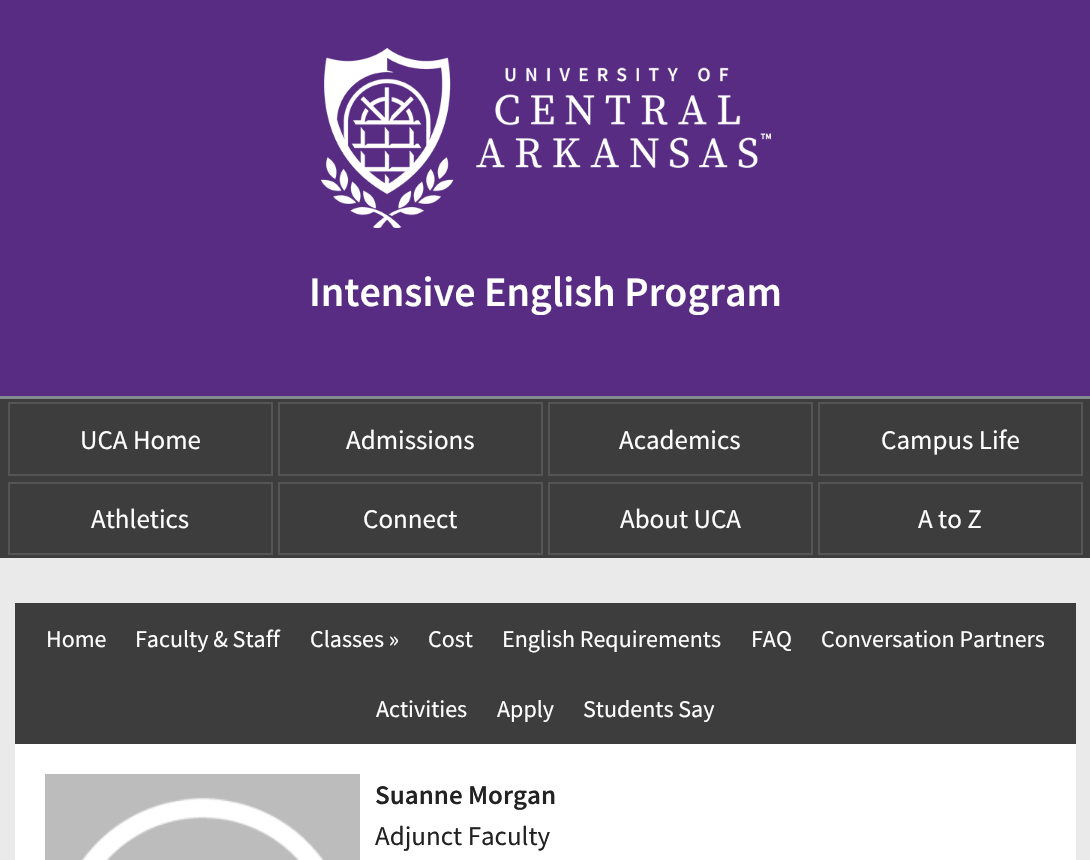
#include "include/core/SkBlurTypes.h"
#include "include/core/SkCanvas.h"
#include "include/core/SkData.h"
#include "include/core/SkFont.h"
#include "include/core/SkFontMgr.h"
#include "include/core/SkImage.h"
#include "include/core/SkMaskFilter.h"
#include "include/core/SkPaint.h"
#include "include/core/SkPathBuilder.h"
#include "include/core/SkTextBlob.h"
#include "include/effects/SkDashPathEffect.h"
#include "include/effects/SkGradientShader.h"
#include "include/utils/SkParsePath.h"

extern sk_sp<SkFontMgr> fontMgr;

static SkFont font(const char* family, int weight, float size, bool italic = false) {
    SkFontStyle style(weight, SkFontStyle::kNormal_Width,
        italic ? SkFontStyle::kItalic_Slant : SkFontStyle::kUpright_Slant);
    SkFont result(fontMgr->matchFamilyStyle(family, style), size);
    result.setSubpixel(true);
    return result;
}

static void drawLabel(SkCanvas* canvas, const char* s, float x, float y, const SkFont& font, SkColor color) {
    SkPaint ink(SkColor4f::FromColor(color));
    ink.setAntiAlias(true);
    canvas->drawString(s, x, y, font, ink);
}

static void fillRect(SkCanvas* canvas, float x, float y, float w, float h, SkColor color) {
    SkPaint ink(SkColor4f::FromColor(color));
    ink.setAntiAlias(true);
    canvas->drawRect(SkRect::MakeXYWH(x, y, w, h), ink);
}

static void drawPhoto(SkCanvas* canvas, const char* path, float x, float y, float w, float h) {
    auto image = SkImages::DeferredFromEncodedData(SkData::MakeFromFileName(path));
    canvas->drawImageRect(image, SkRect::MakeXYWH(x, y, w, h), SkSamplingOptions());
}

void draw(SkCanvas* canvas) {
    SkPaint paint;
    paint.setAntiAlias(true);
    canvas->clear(0xFFEAEAEA);
    fillRect(canvas, 0, 0, 1090, 396, 0xFF582C83);
    fillRect(canvas, 0, 396, 1090, 3, 0xFF818A8F);
    drawPhoto(canvas, "assets/img1.png", 321, 48, 450, 180);
    SkFont font1 = font("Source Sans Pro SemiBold", 600, 42);
    drawLabel(canvas, "Intensive English Program", 309, 306, font1, 0xFFFFFFFF);
    fillRect(canvas, 0, 399, 1090, 159, 0xFF3D3D3D);
    paint.setStroke(true);
    paint.setStrokeWidth(2);
    paint.setColor(0xFF555555);
    canvas->drawRect(SkRect::MakeXYWH(9, 403, 263, 72), paint);
    SkFont font2 = font("Source Sans Pro", 400, 27);
    drawLabel(canvas, "UCA Home", 80, 449, font2, 0xFFFFFFFF);
    canvas->drawRect(SkRect::MakeXYWH(279, 403, 263, 72), paint);
    drawLabel(canvas, "Admissions", 346, 449, font2, 0xFFFFFFFF);
    canvas->drawRect(SkRect::MakeXYWH(549, 403, 263, 72), paint);
    drawLabel(canvas, "Academics", 619, 449, font2, 0xFFFFFFFF);
    canvas->drawRect(SkRect::MakeXYWH(819, 403, 263, 72), paint);
    drawLabel(canvas, "Campus Life", 881, 449, font2, 0xFFFFFFFF);
    canvas->drawRect(SkRect::MakeXYWH(9, 483, 263, 71), paint);
    drawLabel(canvas, "Athletics", 91, 528, font2, 0xFFFFFFFF);
    canvas->drawRect(SkRect::MakeXYWH(279, 483, 263, 71), paint);
    drawLabel(canvas, "Connect", 363, 528, font2, 0xFFFFFFFF);
    canvas->drawRect(SkRect::MakeXYWH(549, 483, 263, 71), paint);
    drawLabel(canvas, "About UCA", 620, 528, font2, 0xFFFFFFFF);
    canvas->drawRect(SkRect::MakeXYWH(819, 483, 263, 71), paint);
    drawLabel(canvas, "A to Z", 918, 528, font2, 0xFFFFFFFF);
    fillRect(canvas, 15, 603, 1061, 141, 0xFF3D3D3D);
    SkFont font3 = font("Source Sans Pro", 400, 24);
    drawLabel(canvas, "Home", 46, 647, font3, 0xFFFFFFFF);
    drawLabel(canvas, "Faculty & Staff", 135, 647, font3, 0xFFFFFFFF);
    drawLabel(canvas, "Classes »", 310, 647, font3, 0xFFFFFFFF);
    drawLabel(canvas, "Cost", 428, 647, font3, 0xFFFFFFFF);
    drawLabel(canvas, "English Requirements", 502, 647, font3, 0xFFFFFFFF);
    drawLabel(canvas, "FAQ", 751, 647, font3, 0xFFFFFFFF);
    drawLabel(canvas, "Conversation Partners", 821, 647, font3, 0xFFFFFFFF);
    drawLabel(canvas, "Activities", 376, 717, font3, 0xFFFFFFFF);
    drawLabel(canvas, "Apply", 497, 717, font3, 0xFFFFFFFF);
    drawLabel(canvas, "Students Say", 583, 717, font3, 0xFFFFFFFF);
    fillRect(canvas, 15, 744, 1061, 116, 0xFFFFFFFF);
    drawPhoto(canvas, "assets/img2.png", 45, 774, 315, 86);
    SkFont font4 = font("Source Sans Pro SemiBold", 600, 27);
    drawLabel(canvas, "Suanne Morgan", 375, 804, font4, 0xFF222222);
    drawLabel(canvas, "Adjunct Faculty", 375, 845, font2, 0xFF222222);
}
